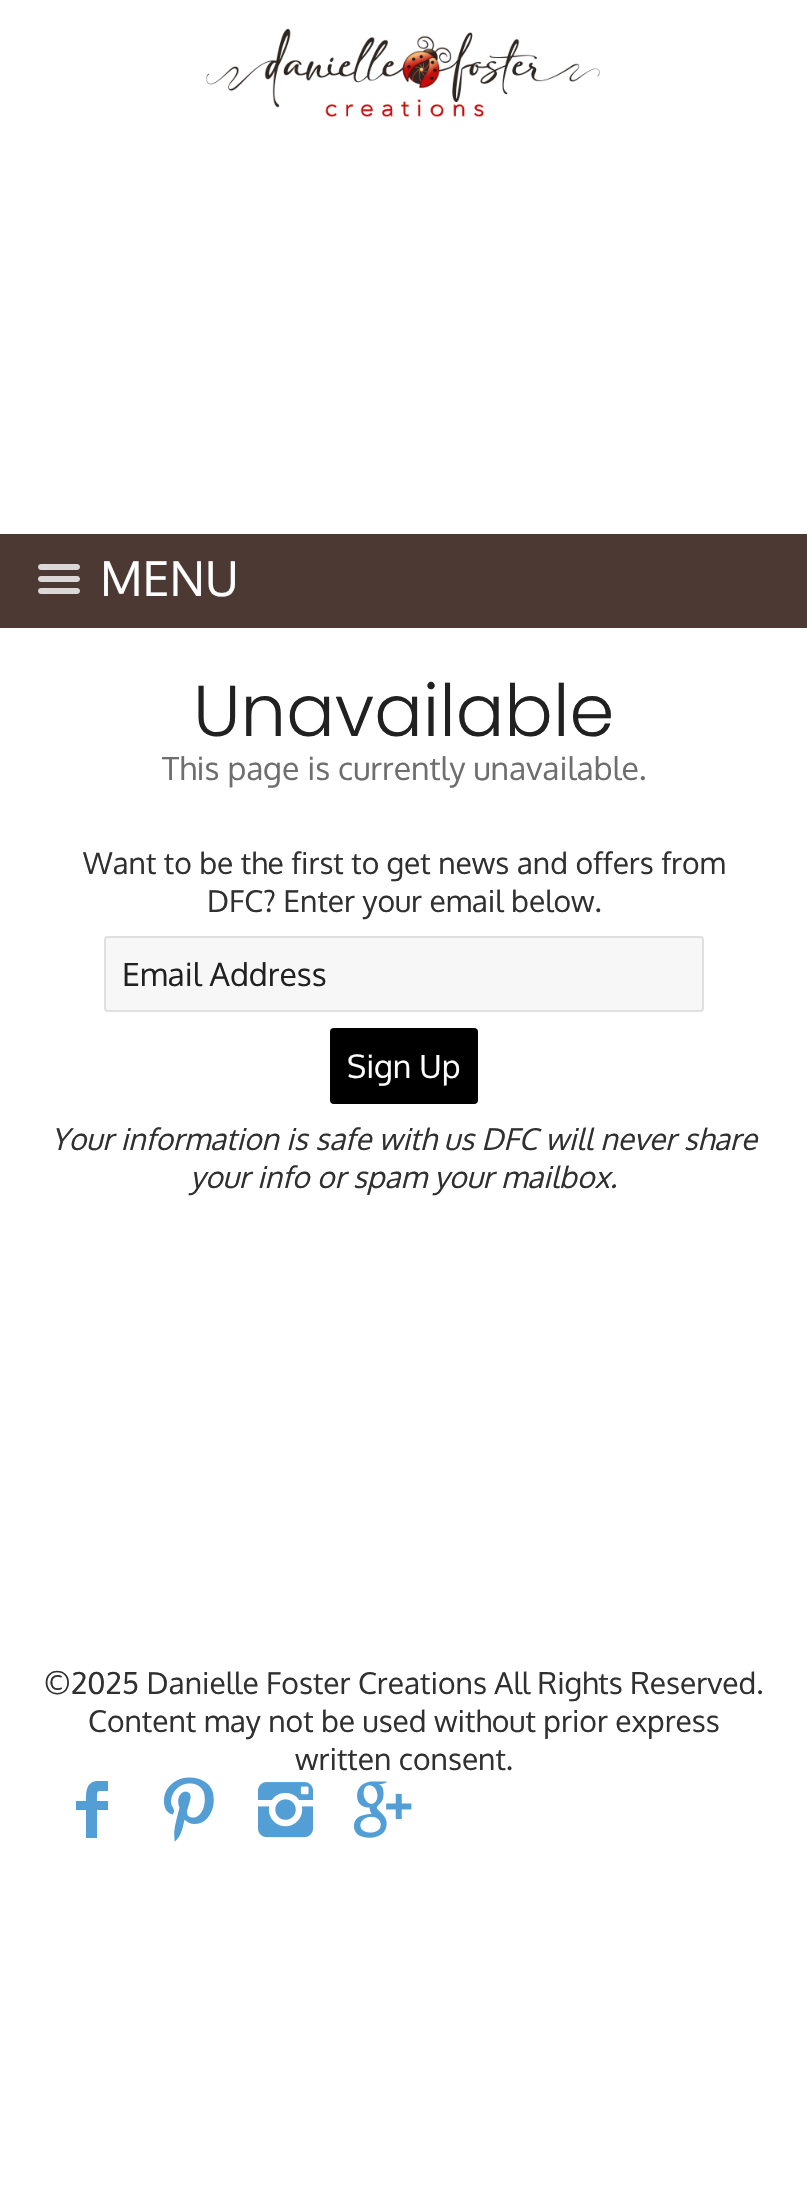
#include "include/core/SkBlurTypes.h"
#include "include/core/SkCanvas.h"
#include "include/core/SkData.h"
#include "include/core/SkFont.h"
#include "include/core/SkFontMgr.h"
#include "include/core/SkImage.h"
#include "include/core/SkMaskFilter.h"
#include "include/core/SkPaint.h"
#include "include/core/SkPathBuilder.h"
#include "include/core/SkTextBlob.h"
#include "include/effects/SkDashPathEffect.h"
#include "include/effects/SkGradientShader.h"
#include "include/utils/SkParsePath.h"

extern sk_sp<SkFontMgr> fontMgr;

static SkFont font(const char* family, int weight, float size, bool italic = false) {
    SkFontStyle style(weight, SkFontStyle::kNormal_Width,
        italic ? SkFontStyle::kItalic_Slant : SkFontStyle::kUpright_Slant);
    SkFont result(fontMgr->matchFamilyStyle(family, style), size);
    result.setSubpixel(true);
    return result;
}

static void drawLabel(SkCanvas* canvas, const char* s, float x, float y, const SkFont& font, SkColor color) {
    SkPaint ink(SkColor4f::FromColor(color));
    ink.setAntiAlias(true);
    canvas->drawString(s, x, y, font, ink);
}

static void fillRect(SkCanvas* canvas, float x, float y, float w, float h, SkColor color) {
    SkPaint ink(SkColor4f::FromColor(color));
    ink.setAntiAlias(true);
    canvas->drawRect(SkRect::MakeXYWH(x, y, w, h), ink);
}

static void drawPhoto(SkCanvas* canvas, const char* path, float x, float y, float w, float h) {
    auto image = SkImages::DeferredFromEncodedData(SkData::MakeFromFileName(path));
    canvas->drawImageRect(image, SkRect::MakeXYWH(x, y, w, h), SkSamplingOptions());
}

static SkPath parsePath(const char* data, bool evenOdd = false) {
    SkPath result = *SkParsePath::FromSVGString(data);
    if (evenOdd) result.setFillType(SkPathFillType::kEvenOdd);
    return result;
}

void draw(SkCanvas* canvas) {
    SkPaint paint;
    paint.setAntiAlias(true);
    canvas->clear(0xFFFFFFFF);
    drawPhoto(canvas, "assets/img1.png", 206, 28, 394, 89);
    fillRect(canvas, 0, 534, 807, 94, 0xFF4D3933);
    drawPhoto(canvas, "assets/img2.png", 38, 564, 42, 30);
    SkFont font1 = font("Oxygen", 400, 48);
    drawLabel(canvas, "MENU", 100, 596, font1, 0xFFFFFFFF);
    SkFont font2 = font("Poppins", 300, 72);
    drawLabel(canvas, "Unavailable", 193, 736, font2, 0xFF212121);
    SkFont font3 = font("Oxygen", 400, 32);
    drawLabel(canvas, "This page is currently unavailable.", 162, 780, font3, 0xFF6E6E6E);
    SkFont font4 = font("Oxygen", 400, 30);
    drawLabel(canvas, "Want to be the first to get news and offers from", 83, 874, font4, 0xFF303030);
    drawLabel(canvas, "DFC? Enter your email below.", 207, 912, font4, 0xFF303030);
    paint.setColor(0xFFF7F7F7);
    canvas->drawRoundRect(SkRect::MakeXYWH(105, 937, 598, 74), 3, 3, paint);
    paint.setStroke(true);
    paint.setStrokeWidth(2);
    paint.setColor(0xFFE0E0E0);
    canvas->drawRoundRect(SkRect::MakeXYWH(105, 937, 598, 74), 3, 3, paint);
    drawLabel(canvas, "Email Address", 122, 986, font3, 0xFF212121);
    paint.setStroke(false);
    paint.setColor(0xFF000000);
    canvas->drawRoundRect(SkRect::MakeXYWH(331, 1029, 146, 74), 3, 3, paint);
    paint.setStroke(true);
    canvas->drawRoundRect(SkRect::MakeXYWH(331, 1029, 146, 74), 3, 3, paint);
    drawLabel(canvas, "Sign Up", 347, 1078, font3, 0xFFFFFFFF);
    SkFont font5 = font("Oxygen", 400, 30, true);
    drawLabel(canvas, "Your information is safe with us DFC will never share", 51, 1150, font5, 0xFF303030);
    drawLabel(canvas, "your info or spam your mailbox.", 190, 1188, font5, 0xFF303030);
    drawLabel(canvas, "©2025 Danielle Foster Creations All Rights Reserved.", 44, 1694, font4, 0xFF303030);
    drawLabel(canvas, "Content may not be used without prior express", 88, 1732, font4, 0xFF303030);
    drawLabel(canvas, "written consent.", 295, 1770, font4, 0xFF303030);
    paint.setStroke(false);
    paint.setColor(0xFF549ED6);
    canvas->drawPath(parsePath("M108 1791C96 1791 97 1789 97 1801H108V1810H97V1838H86V1810H76V1801H86C86 1792 86 1783 96 1781H108Z"), paint);
    drawPhoto(canvas, "assets/img3.png", 164, 1777, 50, 65);
    drawPhoto(canvas, "assets/img4.png", 258, 1782, 56, 56);
    drawPhoto(canvas, "assets/img5.png", 354, 1781, 58, 57);
}
